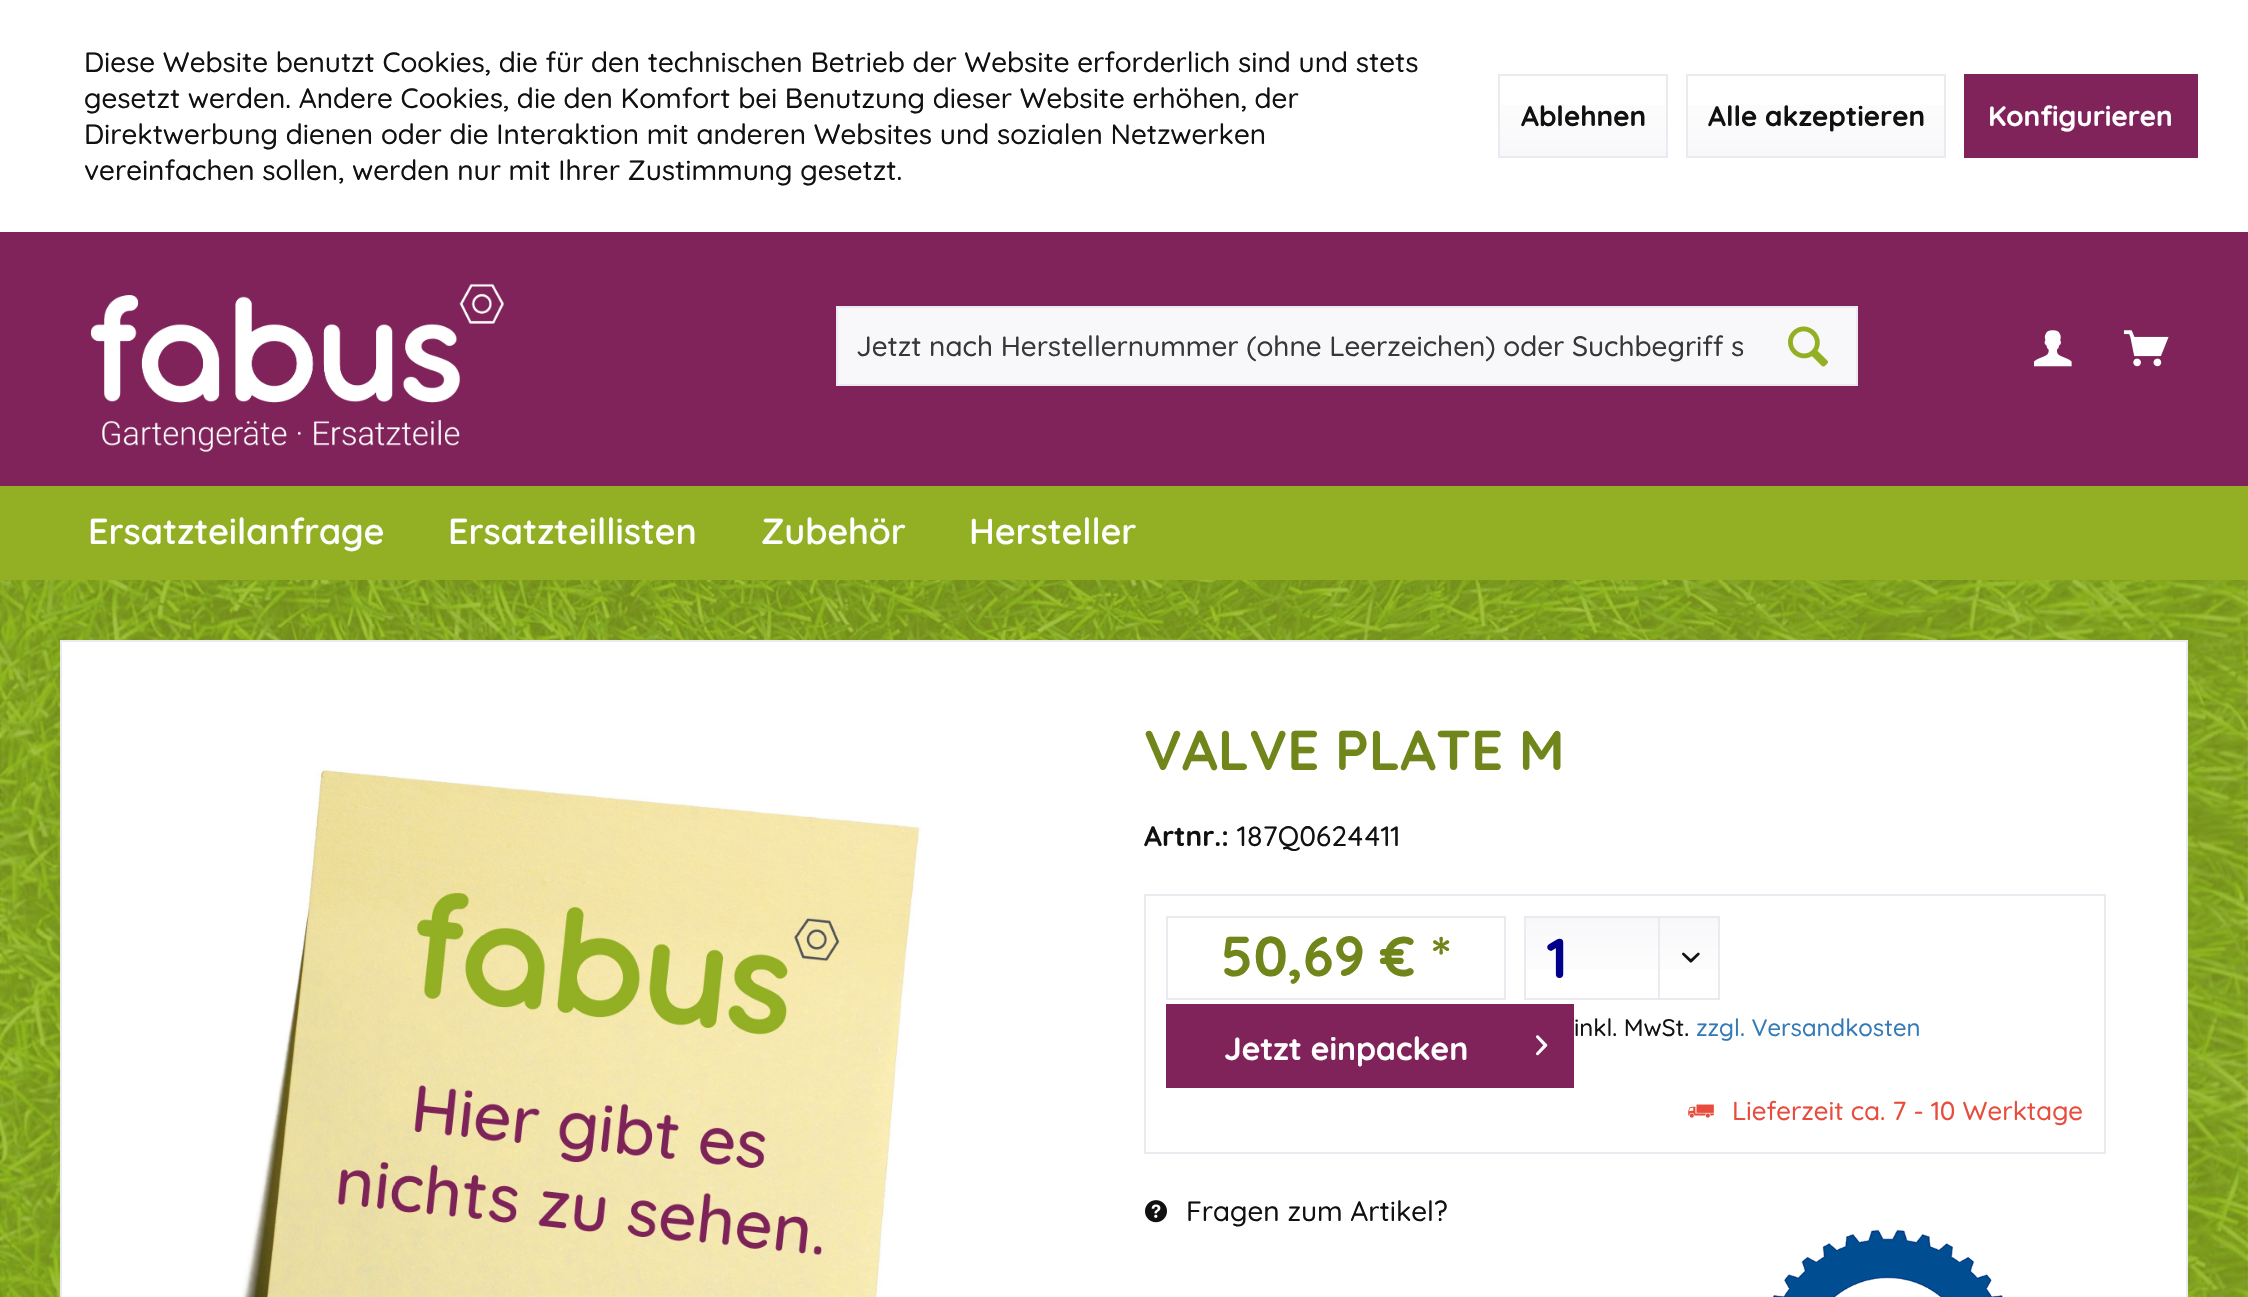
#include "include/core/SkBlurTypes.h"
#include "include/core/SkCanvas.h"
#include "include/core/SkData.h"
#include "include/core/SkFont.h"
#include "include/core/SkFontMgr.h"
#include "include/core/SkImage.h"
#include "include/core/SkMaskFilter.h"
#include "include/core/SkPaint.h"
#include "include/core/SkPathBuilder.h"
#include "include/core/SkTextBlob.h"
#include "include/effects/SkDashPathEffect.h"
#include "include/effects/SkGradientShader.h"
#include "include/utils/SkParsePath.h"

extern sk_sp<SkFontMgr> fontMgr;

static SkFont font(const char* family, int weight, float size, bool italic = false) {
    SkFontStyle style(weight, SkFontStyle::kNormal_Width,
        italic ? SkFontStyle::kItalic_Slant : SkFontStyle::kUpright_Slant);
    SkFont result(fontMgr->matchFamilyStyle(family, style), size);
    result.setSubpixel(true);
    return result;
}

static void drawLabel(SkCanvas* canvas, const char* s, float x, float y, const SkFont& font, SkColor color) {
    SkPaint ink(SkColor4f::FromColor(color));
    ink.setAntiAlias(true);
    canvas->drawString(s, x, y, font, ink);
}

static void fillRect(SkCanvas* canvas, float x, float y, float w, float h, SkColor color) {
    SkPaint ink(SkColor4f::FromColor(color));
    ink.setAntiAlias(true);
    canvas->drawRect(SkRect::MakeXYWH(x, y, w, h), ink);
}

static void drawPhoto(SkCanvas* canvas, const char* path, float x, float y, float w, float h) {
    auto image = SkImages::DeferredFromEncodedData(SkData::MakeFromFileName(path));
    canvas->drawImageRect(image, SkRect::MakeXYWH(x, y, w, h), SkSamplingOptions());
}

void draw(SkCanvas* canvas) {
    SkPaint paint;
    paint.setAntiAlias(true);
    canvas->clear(0xFFFFFFFF);
    drawPhoto(canvas, "assets/img1.png", 0, 580, 2248, 717);
    SkFont font1 = font("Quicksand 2", 300, 28);
    drawLabel(canvas, "Diese Website benutzt Cookies, die für den technischen Betrieb der Website erforderlich sind und stets", 84, 72, font1, 0xFF111111);
    drawLabel(canvas, "gesetzt werden. Andere Cookies, die den Komfort bei Benutzung dieser Website erhöhen, der", 84, 108, font1, 0xFF111111);
    drawLabel(canvas, "Direktwerbung dienen oder die Interaktion mit anderen Websites und sozialen Netzwerken", 84, 144, font1, 0xFF111111);
    drawLabel(canvas, "vereinfachen sollen, werden nur mit Ihrer Zustimmung gesetzt.", 84, 180, font1, 0xFF111111);
    {
        const SkColor colors[] = {0xFFFFFFFF, 0xFFF8F8FA};
        const float stops[] = {0, 1};
        const SkPoint ends[] = {{1583, 76}, {1583, 156}};
        paint.setShader(SkGradientShader::MakeLinear(ends, colors, stops, 2, SkTileMode::kClamp));
        paint.setAlpha(255);
    }
    canvas->drawRect(SkRect::MakeXYWH(1500, 105, 166, 51), paint);
    paint.setStroke(true);
    paint.setStrokeWidth(2);
    paint.setShader(nullptr);
    paint.setColor(0xFFEAEAF0);
    canvas->drawRect(SkRect::MakeXYWH(1499, 75, 168, 82), paint);
    SkFont font2 = font("Quicksand", 300, 28);
    drawLabel(canvas, "Ablehnen", 1521, 126, font2, 0xFF111111);
    paint.setStroke(false);
    {
        const SkColor colors[] = {0xFFFFFFFF, 0xFFF8F8FA};
        const float stops[] = {0, 1};
        const SkPoint ends[] = {{1816, 76}, {1816, 156}};
        paint.setShader(SkGradientShader::MakeLinear(ends, colors, stops, 2, SkTileMode::kClamp));
        paint.setAlpha(255);
    }
    canvas->drawRect(SkRect::MakeXYWH(1688, 105, 256, 51), paint);
    paint.setStroke(true);
    paint.setShader(nullptr);
    paint.setColor(0xFFEAEAF0);
    canvas->drawRect(SkRect::MakeXYWH(1687, 75, 258, 82), paint);
    drawLabel(canvas, "Alle akzeptieren", 1708, 126, font2, 0xFF111111);
    fillRect(canvas, 1964, 74, 234, 84, 0xFF7F235A);
    drawLabel(canvas, "Konfigurieren", 1988, 126, font2, 0xFFFFFFFF);
    fillRect(canvas, 0, 232, 2248, 254, 0xFF7F235A);
    drawPhoto(canvas, "assets/img2.png", 90, 283, 415, 169);
    paint.setStroke(false);
    paint.setColor(0xFFF8F8FA);
    canvas->drawRect(SkRect::MakeXYWH(837, 307, 1020, 78), paint);
    paint.setStroke(true);
    paint.setColor(0xFFEAEAF0);
    canvas->drawRect(SkRect::MakeXYWH(837, 307, 1020, 78), paint);
    drawLabel(canvas, "Jetzt nach Herstellernummer (ohne Leerzeichen) oder Suchbegriff s", 856, 356, font1, 0xFF373737);
    drawPhoto(canvas, "assets/img3.png", 1788, 326, 40, 41);
    drawPhoto(canvas, "assets/img4.png", 2034, 330, 38, 37);
    drawPhoto(canvas, "assets/img5.png", 2124, 330, 45, 37);
    fillRect(canvas, 0, 486, 2248, 94, 0xFF93B024);
    SkFont font3 = font("Quicksand", 600, 36);
    drawLabel(canvas, "Ersatzteilanfrage", 88, 544, font3, 0xFFFFFFFF);
    drawLabel(canvas, "Ersatzteillisten", 448, 544, font3, 0xFFFFFFFF);
    drawLabel(canvas, "Zubehör", 761, 544, font3, 0xFFFFFFFF);
    drawLabel(canvas, "Hersteller", 969, 544, font3, 0xFFFFFFFF);
    fillRect(canvas, 62, 642, 2124, 655, 0xFFFFFFFF);
    fillRect(canvas, 60, 640, 2128, 2, 0xFFEAEAF0);
    fillRect(canvas, 2186, 640, 2, 657, 0xFFEAEAF0);
    fillRect(canvas, 60, 640, 2, 657, 0xFFEAEAF0);
    drawPhoto(canvas, "assets/img6.png", 242, 769, 680, 528);
    SkFont font4 = font("Quicksand", 300, 56);
    drawLabel(canvas, "VALVE PLATE M", 1144, 770, font4, 0xFF70861B);
    drawLabel(canvas, "Artnr.:", 1144, 846, font2, 0xFF111111);
    drawLabel(canvas, "187Q0624411", 1237, 846, font1, 0xFF111111);
    canvas->drawRect(SkRect::MakeXYWH(1145, 895, 960, 258), paint);
    canvas->drawRect(SkRect::MakeXYWH(1167, 917, 338, 82), paint);
    drawLabel(canvas, "50,69 € *", 1221, 976, font4, 0xFF70861B);
    paint.setStroke(false);
    {
        const SkColor colors[] = {0xFFF8F8FA, 0xFFFFFFFF};
        const float stops[] = {0, 1};
        const SkPoint ends[] = {{1622, 918}, {1622, 998}};
        paint.setShader(SkGradientShader::MakeLinear(ends, colors, stops, 2, SkTileMode::kClamp));
        paint.setAlpha(255);
    }
    canvas->drawRect(SkRect::MakeXYWH(1526, 918, 192, 51), paint);
    paint.setStroke(true);
    paint.setShader(nullptr);
    paint.setColor(0xFFEAEAF0);
    canvas->drawRect(SkRect::MakeXYWH(1525, 917, 194, 82), paint);
    drawLabel(canvas, "1", 1547, 978, font4, 0xFF00008B);
    fillRect(canvas, 1658, 918, 2, 80, 0xFFEAEAF0);
    drawPhoto(canvas, "assets/img7.png", 1682, 952, 18, 11);
    SkFont font5 = font("Quicksand 2", 300, 24);
    drawLabel(canvas, "inkl. MwSt.", 1574, 1036, font5, 0xFF111111);
    drawLabel(canvas, "zzgl. Versandkosten", 1696, 1036, font5, 0xFF337AB7);
    fillRect(canvas, 1166, 1004, 408, 84, 0xFF7F235A);
    SkFont font6 = font("Quicksand", 300, 32);
    drawLabel(canvas, "Jetzt einpacken", 1224, 1060, font6, 0xFFFFFFFF);
    drawPhoto(canvas, "assets/img8.png", 1536, 1035, 12, 21);
    drawPhoto(canvas, "assets/img9.png", 1688, 1104, 26, 14);
    SkFont font7 = font("Quicksand 2", 300, 26);
    drawLabel(canvas, "Lieferzeit ca. 7 - 10 Werktage", 1732, 1120, font7, 0xFFE74C3C);
    drawPhoto(canvas, "assets/img10.png", 1145, 1200, 22, 23);
    drawLabel(canvas, "Fragen zum Artikel?", 1186, 1221, font1, 0xFF111111);
    drawPhoto(canvas, "assets/img11.png", 1772, 1229, 231, 68);
}
